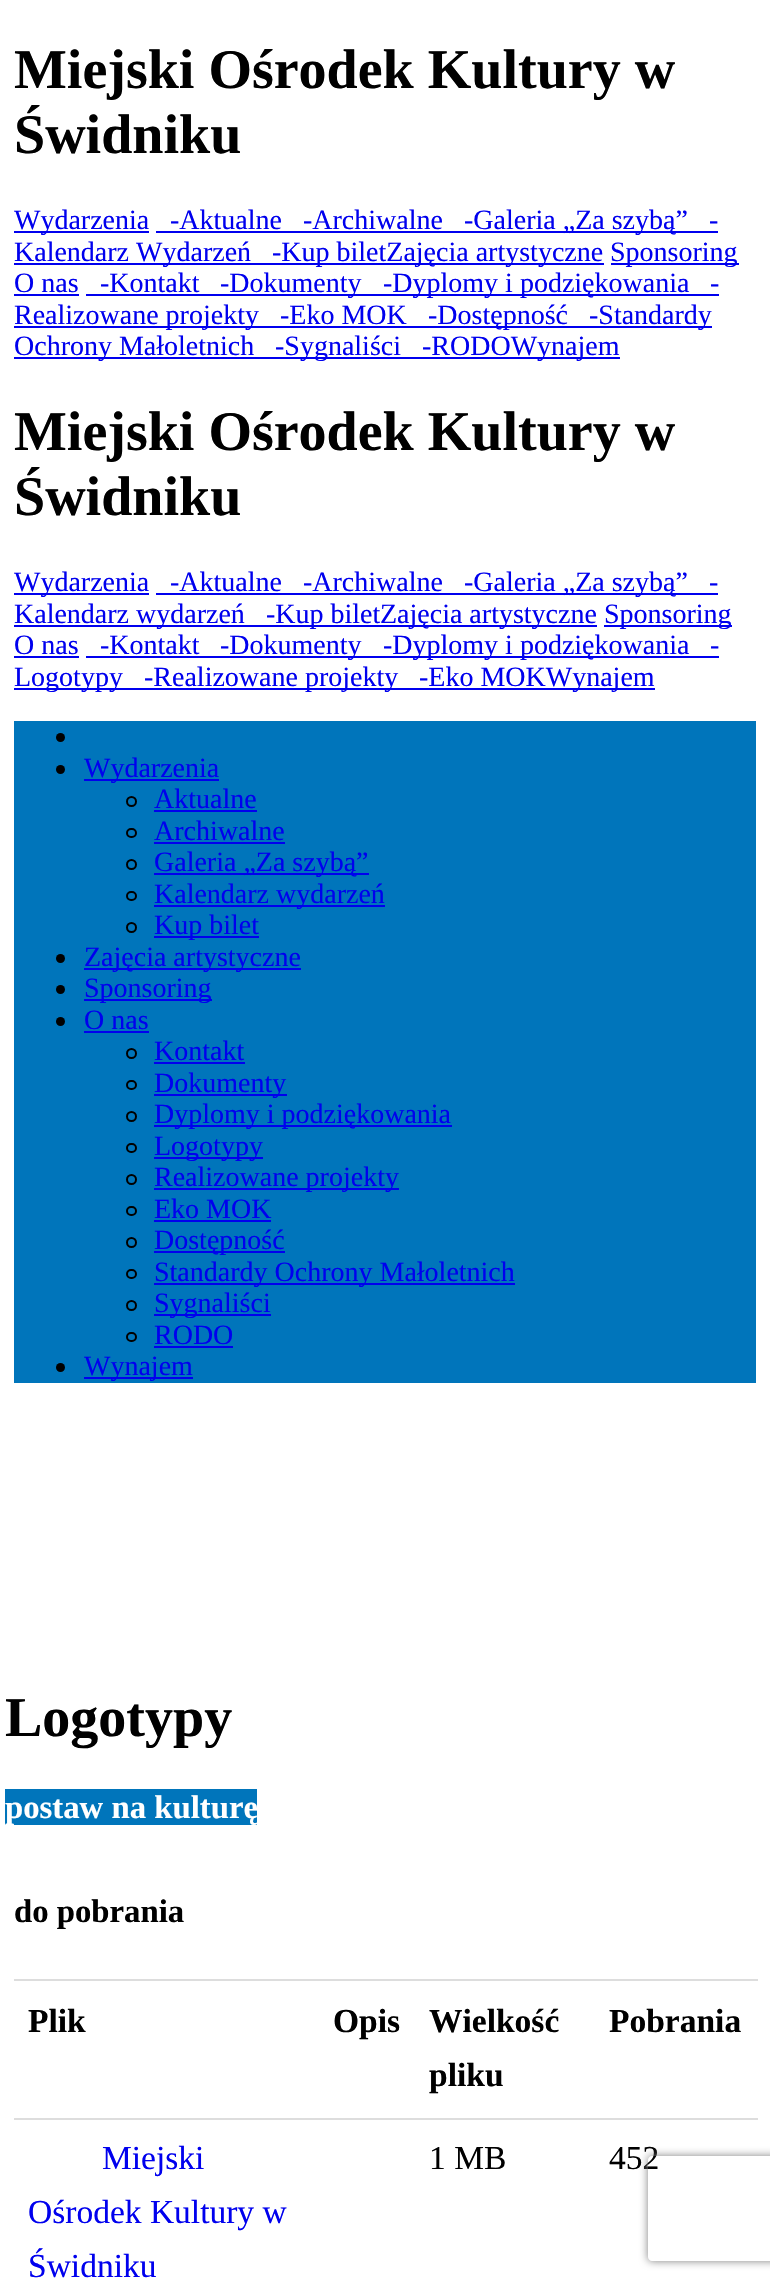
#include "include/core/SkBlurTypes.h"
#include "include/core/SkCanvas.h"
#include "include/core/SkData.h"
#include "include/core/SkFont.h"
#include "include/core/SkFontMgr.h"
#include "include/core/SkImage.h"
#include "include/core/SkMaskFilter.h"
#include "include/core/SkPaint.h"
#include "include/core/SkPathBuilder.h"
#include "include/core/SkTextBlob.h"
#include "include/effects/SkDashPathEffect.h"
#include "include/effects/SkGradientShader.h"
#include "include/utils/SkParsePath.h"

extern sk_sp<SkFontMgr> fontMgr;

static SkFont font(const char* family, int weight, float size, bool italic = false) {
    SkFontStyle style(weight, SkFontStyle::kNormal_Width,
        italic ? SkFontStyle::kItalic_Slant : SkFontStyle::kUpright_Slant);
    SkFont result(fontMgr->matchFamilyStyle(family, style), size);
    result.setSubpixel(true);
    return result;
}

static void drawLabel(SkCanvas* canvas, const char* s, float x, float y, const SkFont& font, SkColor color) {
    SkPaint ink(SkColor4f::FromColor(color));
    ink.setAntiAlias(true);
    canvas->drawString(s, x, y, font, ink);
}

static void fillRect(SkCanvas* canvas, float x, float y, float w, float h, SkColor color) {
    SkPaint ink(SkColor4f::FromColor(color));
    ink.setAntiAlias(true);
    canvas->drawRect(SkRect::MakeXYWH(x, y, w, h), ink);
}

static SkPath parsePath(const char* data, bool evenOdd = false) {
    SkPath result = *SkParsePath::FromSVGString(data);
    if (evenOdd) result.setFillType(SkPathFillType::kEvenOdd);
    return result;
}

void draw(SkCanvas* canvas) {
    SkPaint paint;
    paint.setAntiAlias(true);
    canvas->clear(0xFFFFFFFF);
    SkFont font1 = font("Liberation Serif", 700, 56);
    drawLabel(canvas, "Miejski Ośrodek Kultury w", 14, 88, font1, 0xFF000000);
    drawLabel(canvas, "Świdniku", 14, 153, font1, 0xFF000000);
    fillRect(canvas, 14, 231, 135, 2, 0xFF0000EE);
    SkFont font2 = font("Liberation Serif", 400, 28);
    drawLabel(canvas, "Wydarzenia", 14, 229, font2, 0xFF0000EE);
    drawLabel(canvas, "-Aktualne", 170, 229, font2, 0xFF0000EE);
    fillRect(canvas, 156, 231, 562, 2, 0xFF0000EE);
    drawLabel(canvas, "-Archiwalne", 303, 229, font2, 0xFF0000EE);
    drawLabel(canvas, "-Galeria „Za szybą”", 464, 229, font2, 0xFF0000EE);
    drawLabel(canvas, "-", 709, 229, font2, 0xFF0000EE);
    fillRect(canvas, 14, 263, 236, 2, 0xFF0000EE);
    drawLabel(canvas, "Kalendarz Wydarzeń", 14, 261, font2, 0xFF0000EE);
    fillRect(canvas, 250, 263, 354, 2, 0xFF0000EE);
    drawLabel(canvas, "-Kup biletZajęcia artystyczne", 272, 261, font2, 0xFF0000EE);
    fillRect(canvas, 611, 263, 128, 2, 0xFF0000EE);
    drawLabel(canvas, "Sponsoring", 610, 261, font2, 0xFF0000EE);
    drawLabel(canvas, "O nas", 14, 292, font2, 0xFF0000EE);
    fillRect(canvas, 14, 294, 65, 2, 0xFF0000EE);
    drawLabel(canvas, "-Kontakt", 100, 292, font2, 0xFF0000EE);
    fillRect(canvas, 86, 294, 633, 2, 0xFF0000EE);
    drawLabel(canvas, "-Dokumenty", 220, 292, font2, 0xFF0000EE);
    drawLabel(canvas, "-Dyplomy i podziękowania", 383, 292, font2, 0xFF0000EE);
    drawLabel(canvas, "-", 710, 292, font2, 0xFF0000EE);
    fillRect(canvas, 14, 326, 698, 2, 0xFF0000EE);
    drawLabel(canvas, "Realizowane projekty", 14, 324, font2, 0xFF0000EE);
    drawLabel(canvas, "-Eko MOK", 280, 324, font2, 0xFF0000EE);
    drawLabel(canvas, "-Dostępność", 428, 324, font2, 0xFF0000EE);
    drawLabel(canvas, "-Standardy", 589, 324, font2, 0xFF0000EE);
    fillRect(canvas, 14, 357, 606, 2, 0xFF0000EE);
    drawLabel(canvas, "Ochrony Małoletnich", 14, 355, font2, 0xFF0000EE);
    drawLabel(canvas, "-Sygnaliści", 275, 355, font2, 0xFF0000EE);
    drawLabel(canvas, "-RODOWynajem", 422, 355, font2, 0xFF0000EE);
    drawLabel(canvas, "Miejski Ośrodek Kultury w", 14, 450, font1, 0xFF000000);
    drawLabel(canvas, "Świdniku", 14, 515, font1, 0xFF000000);
    fillRect(canvas, 14, 593, 135, 2, 0xFF0000EE);
    drawLabel(canvas, "Wydarzenia", 14, 591, font2, 0xFF0000EE);
    drawLabel(canvas, "-Aktualne", 170, 591, font2, 0xFF0000EE);
    fillRect(canvas, 156, 593, 562, 2, 0xFF0000EE);
    drawLabel(canvas, "-Archiwalne", 303, 591, font2, 0xFF0000EE);
    drawLabel(canvas, "-Galeria „Za szybą”", 464, 591, font2, 0xFF0000EE);
    drawLabel(canvas, "-", 709, 591, font2, 0xFF0000EE);
    fillRect(canvas, 14, 625, 366, 2, 0xFF0000EE);
    drawLabel(canvas, "Kalendarz wydarzeń", 14, 623, font2, 0xFF0000EE);
    drawLabel(canvas, "-Kup bilet", 266, 623, font2, 0xFF0000EE);
    fillRect(canvas, 380, 625, 217, 2, 0xFF0000EE);
    drawLabel(canvas, "Zajęcia artystyczne", 380, 623, font2, 0xFF0000EE);
    fillRect(canvas, 604, 625, 128, 2, 0xFF0000EE);
    drawLabel(canvas, "Sponsoring", 604, 623, font2, 0xFF0000EE);
    drawLabel(canvas, "O nas", 14, 654, font2, 0xFF0000EE);
    fillRect(canvas, 14, 656, 65, 2, 0xFF0000EE);
    drawLabel(canvas, "-Kontakt", 100, 654, font2, 0xFF0000EE);
    fillRect(canvas, 86, 656, 633, 2, 0xFF0000EE);
    drawLabel(canvas, "-Dokumenty", 220, 654, font2, 0xFF0000EE);
    drawLabel(canvas, "-Dyplomy i podziękowania", 383, 654, font2, 0xFF0000EE);
    drawLabel(canvas, "-", 710, 654, font2, 0xFF0000EE);
    fillRect(canvas, 14, 688, 641, 2, 0xFF0000EE);
    drawLabel(canvas, "Logotypy", 14, 686, font2, 0xFF0000EE);
    drawLabel(canvas, "-Realizowane projekty", 144, 686, font2, 0xFF0000EE);
    drawLabel(canvas, "-Eko MOKWynajem", 419, 686, font2, 0xFF0000EE);
    fillRect(canvas, 14, 721, 742, 662, 0xFF0075BB);
    paint.setColor(0xFF000000);
    canvas->drawCircle(60.5f, 737.5f, 4.5f, paint);
    canvas->drawCircle(60.5f, 769.5f, 4.5f, paint);
    fillRect(canvas, 84, 779, 135, 2, 0xFF0000EE);
    drawLabel(canvas, "Wydarzenia", 84, 777, font2, 0xFF0000EE);
    paint.setStroke(true);
    paint.setStrokeWidth(2);
    canvas->drawCircle(131.5f, 801.5f, 4.5f, paint);
    drawLabel(canvas, "Aktualne", 154, 808, font2, 0xFF0000EE);
    fillRect(canvas, 154, 810, 103, 2, 0xFF0000EE);
    canvas->drawRoundRect(SkRect::MakeXYWH(127, 829, 9, 8), 4, 4, paint);
    drawLabel(canvas, "Archiwalne", 154, 840, font2, 0xFF0000EE);
    fillRect(canvas, 154, 842, 131, 2, 0xFF0000EE);
    canvas->drawCircle(131.5f, 864.5f, 4.5f, paint);
    fillRect(canvas, 154, 873, 215, 2, 0xFF0000EE);
    drawLabel(canvas, "Galeria „Za szybą”", 154, 871, font2, 0xFF0000EE);
    canvas->drawRoundRect(SkRect::MakeXYWH(127, 892, 9, 8), 4, 4, paint);
    fillRect(canvas, 154, 905, 231, 2, 0xFF0000EE);
    drawLabel(canvas, "Kalendarz wydarzeń", 154, 903, font2, 0xFF0000EE);
    canvas->drawCircle(131.5f, 927.5f, 4.5f, paint);
    fillRect(canvas, 154, 936, 105, 2, 0xFF0000EE);
    drawLabel(canvas, "Kup bilet", 154, 934, font2, 0xFF0000EE);
    paint.setStroke(false);
    canvas->drawCircle(60.5f, 958.5f, 4.5f, paint);
    fillRect(canvas, 84, 968, 217, 2, 0xFF0000EE);
    drawLabel(canvas, "Zajęcia artystyczne", 84, 966, font2, 0xFF0000EE);
    canvas->drawCircle(60.5f, 989.5f, 4.5f, paint);
    fillRect(canvas, 84, 999, 128, 2, 0xFF0000EE);
    drawLabel(canvas, "Sponsoring", 84, 997, font2, 0xFF0000EE);
    canvas->drawCircle(60.5f, 1021.5f, 4.5f, paint);
    drawLabel(canvas, "O nas", 84, 1029, font2, 0xFF0000EE);
    fillRect(canvas, 84, 1031, 65, 2, 0xFF0000EE);
    paint.setStroke(true);
    canvas->drawCircle(131.5f, 1053.5f, 4.5f, paint);
    drawLabel(canvas, "Kontakt", 154, 1060, font2, 0xFF0000EE);
    fillRect(canvas, 154, 1062, 91, 2, 0xFF0000EE);
    canvas->drawRoundRect(SkRect::MakeXYWH(127, 1081, 9, 8), 4, 4, paint);
    fillRect(canvas, 154, 1094, 133, 2, 0xFF0000EE);
    drawLabel(canvas, "Dokumenty", 154, 1092, font2, 0xFF0000EE);
    canvas->drawCircle(131.5f, 1116.5f, 4.5f, paint);
    fillRect(canvas, 154, 1125, 298, 2, 0xFF0000EE);
    drawLabel(canvas, "Dyplomy i podziękowania", 154, 1123, font2, 0xFF0000EE);
    canvas->drawRoundRect(SkRect::MakeXYWH(127, 1144, 9, 8), 4, 4, paint);
    fillRect(canvas, 154, 1157, 109, 2, 0xFF0000EE);
    drawLabel(canvas, "Logotypy", 154, 1155, font2, 0xFF0000EE);
    canvas->drawCircle(131.5f, 1179.5f, 4.5f, paint);
    fillRect(canvas, 154, 1188, 245, 2, 0xFF0000EE);
    drawLabel(canvas, "Realizowane projekty", 154, 1186, font2, 0xFF0000EE);
    canvas->drawRoundRect(SkRect::MakeXYWH(127, 1207, 9, 8), 4, 4, paint);
    drawLabel(canvas, "Eko MOK", 154, 1218, font2, 0xFF0000EE);
    fillRect(canvas, 154, 1220, 117, 2, 0xFF0000EE);
    canvas->drawCircle(131.5f, 1242.5f, 4.5f, paint);
    fillRect(canvas, 154, 1251, 131, 2, 0xFF0000EE);
    drawLabel(canvas, "Dostępność", 154, 1249, font2, 0xFF0000EE);
    canvas->drawRoundRect(SkRect::MakeXYWH(127, 1270, 9, 8), 4, 4, paint);
    fillRect(canvas, 154, 1283, 361, 2, 0xFF0000EE);
    drawLabel(canvas, "Standardy Ochrony Małoletnich", 154, 1281, font2, 0xFF0000EE);
    canvas->drawCircle(131.5f, 1305.5f, 4.5f, paint);
    fillRect(canvas, 154, 1314, 117, 2, 0xFF0000EE);
    drawLabel(canvas, "Sygnaliści", 154, 1312, font2, 0xFF0000EE);
    canvas->drawRoundRect(SkRect::MakeXYWH(127, 1333, 9, 8), 4, 4, paint);
    drawLabel(canvas, "RODO", 154, 1344, font2, 0xFF0000EE);
    fillRect(canvas, 154, 1346, 79, 2, 0xFF0000EE);
    paint.setStroke(false);
    canvas->drawCircle(60.5f, 1367.5f, 4.5f, paint);
    fillRect(canvas, 84, 1377, 109, 2, 0xFF0000EE);
    drawLabel(canvas, "Wynajem", 84, 1375, font2, 0xFF0000EE);
    drawLabel(canvas, "Logotypy", 5, 1736, font1, 0xFF000000);
    fillRect(canvas, 5, 1789, 252, 36, 0xFF0075BB);
    SkFont font3 = font("Liberation Serif", 700, 32.75f);
    drawLabel(canvas, "postaw na kulturę", 5, 1818, font3, 0xFFFFFFFF);
    drawLabel(canvas, "do pobrania", 14, 1922, font3, 0xFF000000);
    fillRect(canvas, 14, 1979, 744, 2, 0xFFDDDDDD);
    SkFont font4 = font("Liberation Serif", 700, 33.5f);
    drawLabel(canvas, "Plik", 28, 2032, font4, 0xFF000000);
    drawLabel(canvas, "Opis", 333, 2032, font4, 0xFF000000);
    drawLabel(canvas, "Wielkość", 429, 2032, font4, 0xFF000000);
    drawLabel(canvas, "pliku", 429, 2086, font4, 0xFF000000);
    drawLabel(canvas, "Pobrania", 609, 2032, font4, 0xFF000000);
    fillRect(canvas, 14, 2118, 744, 2, 0xFFDDDDDD);
    SkFont font5 = font("Liberation Serif", 400, 33.5f);
    drawLabel(canvas, "Miejski", 102, 2169, font5, 0xFF0000EE);
    drawLabel(canvas, "Ośrodek Kultury w", 28, 2223, font5, 0xFF0000EE);
    drawLabel(canvas, "Świdniku", 28, 2277, font5, 0xFF0000EE);
    drawLabel(canvas, "1 MB", 429, 2169, font5, 0xFF000000);
    drawLabel(canvas, "452", 609, 2169, font5, 0xFF000000);
    canvas->save();
    canvas->clipPath(parsePath("M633 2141H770V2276H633ZM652 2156H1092C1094 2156 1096 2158 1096 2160V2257C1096 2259 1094 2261 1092 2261H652C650 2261 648 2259 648 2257V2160C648 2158 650 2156 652 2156Z", true), true);
    paint.setColor(0xFF808080);
    paint.setMaskFilter(SkMaskFilter::MakeBlur(kNormal_SkBlurStyle, 4.5f));
    canvas->drawRoundRect(SkRect::MakeXYWH(648, 2156, 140, 105), 4, 4, paint);
    paint.setMaskFilter(nullptr);
    canvas->restore();
}
